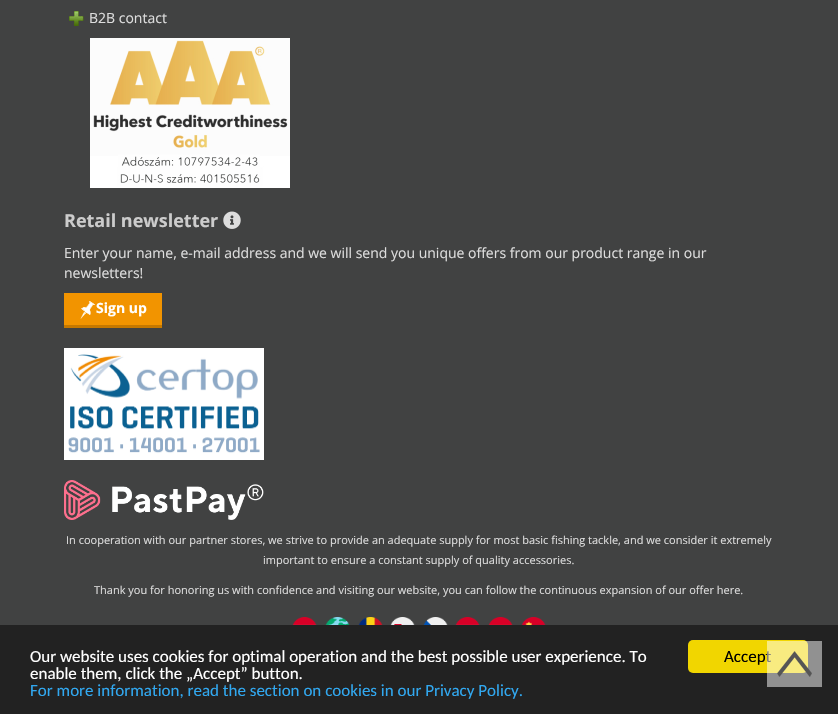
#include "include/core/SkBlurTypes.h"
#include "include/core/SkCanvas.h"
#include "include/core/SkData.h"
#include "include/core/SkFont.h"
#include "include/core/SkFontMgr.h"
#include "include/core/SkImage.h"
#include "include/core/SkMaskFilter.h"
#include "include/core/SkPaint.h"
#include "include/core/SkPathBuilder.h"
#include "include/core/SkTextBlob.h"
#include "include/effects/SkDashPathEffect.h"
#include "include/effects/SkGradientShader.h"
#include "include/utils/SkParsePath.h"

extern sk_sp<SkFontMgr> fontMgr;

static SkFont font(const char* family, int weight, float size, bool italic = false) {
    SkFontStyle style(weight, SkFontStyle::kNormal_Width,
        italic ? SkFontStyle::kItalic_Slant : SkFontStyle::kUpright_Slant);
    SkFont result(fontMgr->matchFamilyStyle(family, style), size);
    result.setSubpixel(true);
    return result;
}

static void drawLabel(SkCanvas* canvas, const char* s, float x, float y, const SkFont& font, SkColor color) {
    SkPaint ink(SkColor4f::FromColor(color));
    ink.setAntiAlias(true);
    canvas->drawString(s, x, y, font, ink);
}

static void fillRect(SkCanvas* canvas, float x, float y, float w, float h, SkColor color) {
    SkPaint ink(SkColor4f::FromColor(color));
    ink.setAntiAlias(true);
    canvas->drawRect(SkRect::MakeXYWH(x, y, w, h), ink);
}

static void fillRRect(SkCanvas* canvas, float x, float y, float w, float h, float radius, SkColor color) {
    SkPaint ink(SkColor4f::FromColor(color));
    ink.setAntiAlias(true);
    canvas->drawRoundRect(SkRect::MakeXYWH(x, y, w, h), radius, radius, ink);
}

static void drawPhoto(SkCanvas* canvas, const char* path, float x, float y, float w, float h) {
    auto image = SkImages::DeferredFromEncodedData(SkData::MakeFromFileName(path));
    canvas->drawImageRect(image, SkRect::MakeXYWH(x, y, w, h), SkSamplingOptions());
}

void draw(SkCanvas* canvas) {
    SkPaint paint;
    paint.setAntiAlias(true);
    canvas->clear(0xFF414242);
    drawPhoto(canvas, "assets/img1.png", 69, 11, 15, 15);
    SkFont font1 = font("Open Sans", 400, 14);
    drawLabel(canvas, "B2B contact", 89, 23, font1, 0xFFDDDDDD);
    drawPhoto(canvas, "assets/img2.png", 90, 38, 200, 150);
    SkFont font2 = font("Open Sans", 700, 18);
    drawLabel(canvas, "Retail newsletter", 64, 227, font2, 0xFFCCCCCC);
    drawPhoto(canvas, "assets/img3.png", 223, 211, 18, 18);
    drawLabel(canvas, "Enter your name, e-mail address and we will send you unique offers from our product range in our", 64, 258, font1, 0xFFDDDDDD);
    drawLabel(canvas, "newsletters!", 64, 278, font1, 0xFFDDDDDD);
    fillRect(canvas, 64, 293, 98, 32, 0xFFF29400);
    fillRect(canvas, 64, 325, 98, 3, 0xFFC57800);
    drawPhoto(canvas, "assets/img4.png", 80, 301, 16, 18);
    SkFont font3 = font("Open Sans", 700, 14);
    drawLabel(canvas, "Sign up", 96, 313, font3, 0xFFFFFFFF);
    drawPhoto(canvas, "assets/img5.png", 64, 348, 200, 112);
    drawPhoto(canvas, "assets/img6.png", 64, 480, 200, 40);
    SkFont font4 = font("Open Sans", 400, 11);
    drawLabel(canvas, "In cooperation with our partner stores, we strive to provide an adequate supply for most basic fishing tackle, and we consider it extremely", 66, 544, font4, 0xFFDDDDDD);
    drawLabel(canvas, "important to ensure a constant supply of quality accessories.", 263, 564, font4, 0xFFDDDDDD);
    drawLabel(canvas, "Thank you for honoring us with confidence and visiting our website, you can follow the continuous expansion of our offer here.", 94, 594, font4, 0xFFDDDDDD);
    drawPhoto(canvas, "assets/img7.png", 292, 617, 25, 8);
    drawPhoto(canvas, "assets/img8.png", 325, 617, 25, 8);
    drawPhoto(canvas, "assets/img9.png", 358, 617, 25, 8);
    drawPhoto(canvas, "assets/img10.png", 390, 617, 25, 8);
    drawPhoto(canvas, "assets/img11.png", 423, 617, 25, 8);
    drawPhoto(canvas, "assets/img12.png", 455, 617, 25, 8);
    drawPhoto(canvas, "assets/img13.png", 488, 617, 25, 8);
    drawPhoto(canvas, "assets/img14.png", 521, 617, 25, 8);
    fillRect(canvas, 0, 625, 838, 89, 0xFF222222);
    SkFont font5 = font("Carlito", 400, 17);
    drawLabel(canvas, "Our website uses cookies for optimal operation and the best possible user experience. To", 30, 662, font5, 0xFFFFFFFF);
    drawLabel(canvas, "enable them, click the „Accept” button.", 30, 679, font5, 0xFFFFFFFF);
    drawLabel(canvas, "For more information, read the section on cookies in our Privacy Policy.", 30, 696, font5, 0xFF31A8F0);
    fillRRect(canvas, 688, 640, 120, 33, 5, 0xFFF1D600);
    drawLabel(canvas, "Accept", 724, 662, font5, 0xFF000000);
    fillRect(canvas, 767, 641, 55, 46, 0x80FFFFFF);
    drawPhoto(canvas, "assets/img15.png", 777, 651, 35, 26);
}
